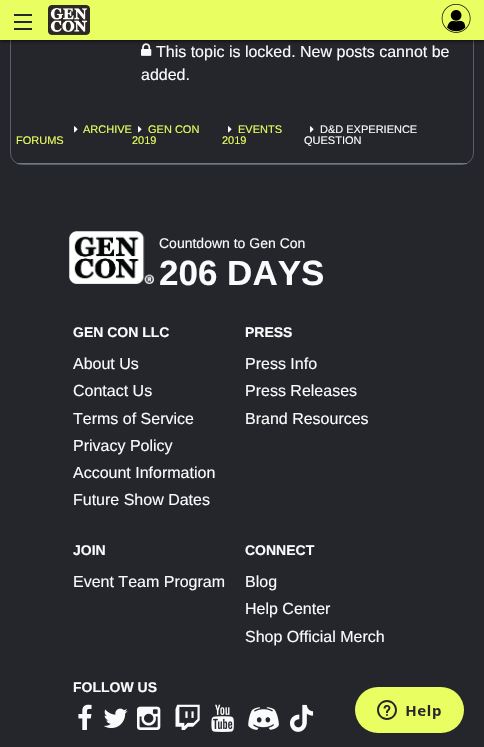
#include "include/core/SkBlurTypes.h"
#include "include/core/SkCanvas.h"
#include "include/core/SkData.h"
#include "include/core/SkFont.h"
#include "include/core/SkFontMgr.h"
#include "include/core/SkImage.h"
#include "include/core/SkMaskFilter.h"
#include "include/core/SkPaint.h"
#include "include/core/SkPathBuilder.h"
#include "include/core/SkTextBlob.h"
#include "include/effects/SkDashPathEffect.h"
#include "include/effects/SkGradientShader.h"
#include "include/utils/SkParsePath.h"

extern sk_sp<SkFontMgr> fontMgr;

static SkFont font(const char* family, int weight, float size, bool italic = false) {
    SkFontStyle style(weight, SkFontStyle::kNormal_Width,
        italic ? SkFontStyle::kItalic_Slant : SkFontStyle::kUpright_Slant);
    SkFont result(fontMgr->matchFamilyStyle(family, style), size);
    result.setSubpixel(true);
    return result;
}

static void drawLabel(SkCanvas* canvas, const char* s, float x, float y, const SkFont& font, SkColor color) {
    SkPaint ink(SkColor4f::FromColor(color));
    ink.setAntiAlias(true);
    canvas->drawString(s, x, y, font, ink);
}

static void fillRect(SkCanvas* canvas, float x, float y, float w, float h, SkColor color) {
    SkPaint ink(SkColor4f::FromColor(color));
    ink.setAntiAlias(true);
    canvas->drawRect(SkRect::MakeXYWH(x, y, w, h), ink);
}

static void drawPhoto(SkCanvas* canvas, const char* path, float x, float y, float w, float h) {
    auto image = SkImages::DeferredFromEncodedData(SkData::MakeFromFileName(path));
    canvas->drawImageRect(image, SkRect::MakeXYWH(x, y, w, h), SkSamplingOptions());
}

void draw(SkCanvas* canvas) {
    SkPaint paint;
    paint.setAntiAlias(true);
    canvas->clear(0xFF24262B);
    paint.setStroke(true);
    paint.setStrokeWidth(1);
    paint.setColor(0xFF595E6A);
    canvas->drawRoundRect(SkRect::MakeXYWH(10.5f, -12.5f, 463, 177), 11.5f, 11.5f, paint);
    fillRect(canvas, 0, 0, 484, 40, 0xFFE9FE60);
    drawPhoto(canvas, "assets/img3.png", 141, 43, 11, 13);
    canvas->save();
    canvas->clipRect(SkRect::MakeXYWH(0, 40, 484, 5));
    paint.setStroke(false);
    paint.setColor(0xFF000000);
    paint.setMaskFilter(SkMaskFilter::MakeBlur(kNormal_SkBlurStyle, 2.5f));
    canvas->drawRect(SkRect::MakeXYWH(0, 0, 484, 40), paint);
    paint.setMaskFilter(nullptr);
    canvas->restore();
    fillRect(canvas, 14, 28, 18, 2, 0xFF24262B);
    fillRect(canvas, 14, 21, 18, 2, 0xFF24262B);
    fillRect(canvas, 14, 14, 18, 2, 0xFF24262B);
    drawPhoto(canvas, "assets/img1.png", 48, 5, 42, 30);
    drawPhoto(canvas, "assets/img2.png", 441, 3, 30, 30);
    SkFont font1 = font("Liberation Sans", 400, 16);
    drawLabel(canvas, "This topic is locked. New posts cannot be", 156, 57, font1, 0xFFFAFBFC);
    drawLabel(canvas, "added.", 141, 80, font1, 0xFFFAFBFC);
    fillRect(canvas, 17, 163, 450, 1, 0xFF707883);
    SkFont font2 = font("Liberation Sans", 400, 11);
    drawLabel(canvas, "FORUMS", 16, 144, font2, 0xFFE9FE60);
    drawPhoto(canvas, "assets/img4.png", 74, 126, 4, 7);
    drawLabel(canvas, "ARCHIVE", 83, 133, font2, 0xFFE9FE60);
    drawPhoto(canvas, "assets/img4.png", 138, 126, 4, 7);
    drawLabel(canvas, "GEN CON", 148, 133, font2, 0xFFE9FE60);
    drawLabel(canvas, "2019", 132, 144, font2, 0xFFE9FE60);
    drawPhoto(canvas, "assets/img4.png", 228, 126, 4, 7);
    drawLabel(canvas, "EVENTS", 238, 133, font2, 0xFFE9FE60);
    drawLabel(canvas, "2019", 222, 144, font2, 0xFFE9FE60);
    drawPhoto(canvas, "assets/img4.png", 310, 126, 4, 7);
    drawLabel(canvas, "D&D EXPERIENCE", 320, 133, font2, 0xFFFAFBFC);
    drawLabel(canvas, "QUESTION", 304, 144, font2, 0xFFFAFBFC);
    drawPhoto(canvas, "assets/img5.png", 69, 231, 85, 53);
    SkFont font3 = font("Liberation Sans", 400, 14);
    drawLabel(canvas, "Countdown to Gen Con", 159, 248, font3, 0xFFFAFBFC);
    SkFont font4 = font("Liberation Sans", 700, 35);
    drawLabel(canvas, "206 DAYS", 159, 285, font4, 0xFFFAFBFC);
    SkFont font5 = font("Liberation Sans", 700, 14);
    drawLabel(canvas, "GEN CON LLC", 73, 337, font5, 0xFFFAFBFC);
    drawLabel(canvas, "About Us", 73, 369, font1, 0xFFFAFBFC);
    drawLabel(canvas, "Contact Us", 73, 396, font1, 0xFFFAFBFC);
    drawLabel(canvas, "Terms of Service", 73, 424, font1, 0xFFFAFBFC);
    drawLabel(canvas, "Privacy Policy", 73, 451, font1, 0xFFFAFBFC);
    drawLabel(canvas, "Account Information", 73, 478, font1, 0xFFFAFBFC);
    drawLabel(canvas, "Future Show Dates", 73, 505, font1, 0xFFFAFBFC);
    drawLabel(canvas, "PRESS", 245, 337, font5, 0xFFFAFBFC);
    drawLabel(canvas, "Press Info", 245, 369, font1, 0xFFFAFBFC);
    drawLabel(canvas, "Press Releases", 245, 396, font1, 0xFFFAFBFC);
    drawLabel(canvas, "Brand Resources", 245, 424, font1, 0xFFFAFBFC);
    drawLabel(canvas, "JOIN", 73, 555, font5, 0xFFFAFBFC);
    drawLabel(canvas, "Event Team Program", 73, 587, font1, 0xFFFAFBFC);
    drawLabel(canvas, "CONNECT", 245, 555, font5, 0xFFFAFBFC);
    drawLabel(canvas, "Blog", 245, 587, font1, 0xFFFAFBFC);
    drawLabel(canvas, "Help Center", 245, 614, font1, 0xFFFAFBFC);
    drawLabel(canvas, "Shop Official Merch", 245, 642, font1, 0xFFFAFBFC);
    drawLabel(canvas, "FOLLOW US", 73, 692, font5, 0xFFFAFBFC);
    drawPhoto(canvas, "assets/img6.png", 78, 704, 14, 26);
    drawPhoto(canvas, "assets/img7.png", 103, 708, 25, 21);
    drawPhoto(canvas, "assets/img8.png", 137, 706, 24, 24);
    drawPhoto(canvas, "assets/img9.png", 175, 704, 25, 26);
    drawPhoto(canvas, "assets/img10.png", 211, 704, 23, 28);
    drawPhoto(canvas, "assets/img11.png", 248, 707, 31, 23);
    drawPhoto(canvas, "assets/img12.png", 290, 704, 24, 28);
    drawPhoto(canvas, "assets/img13.png", 355, 687, 109, 46);
}
